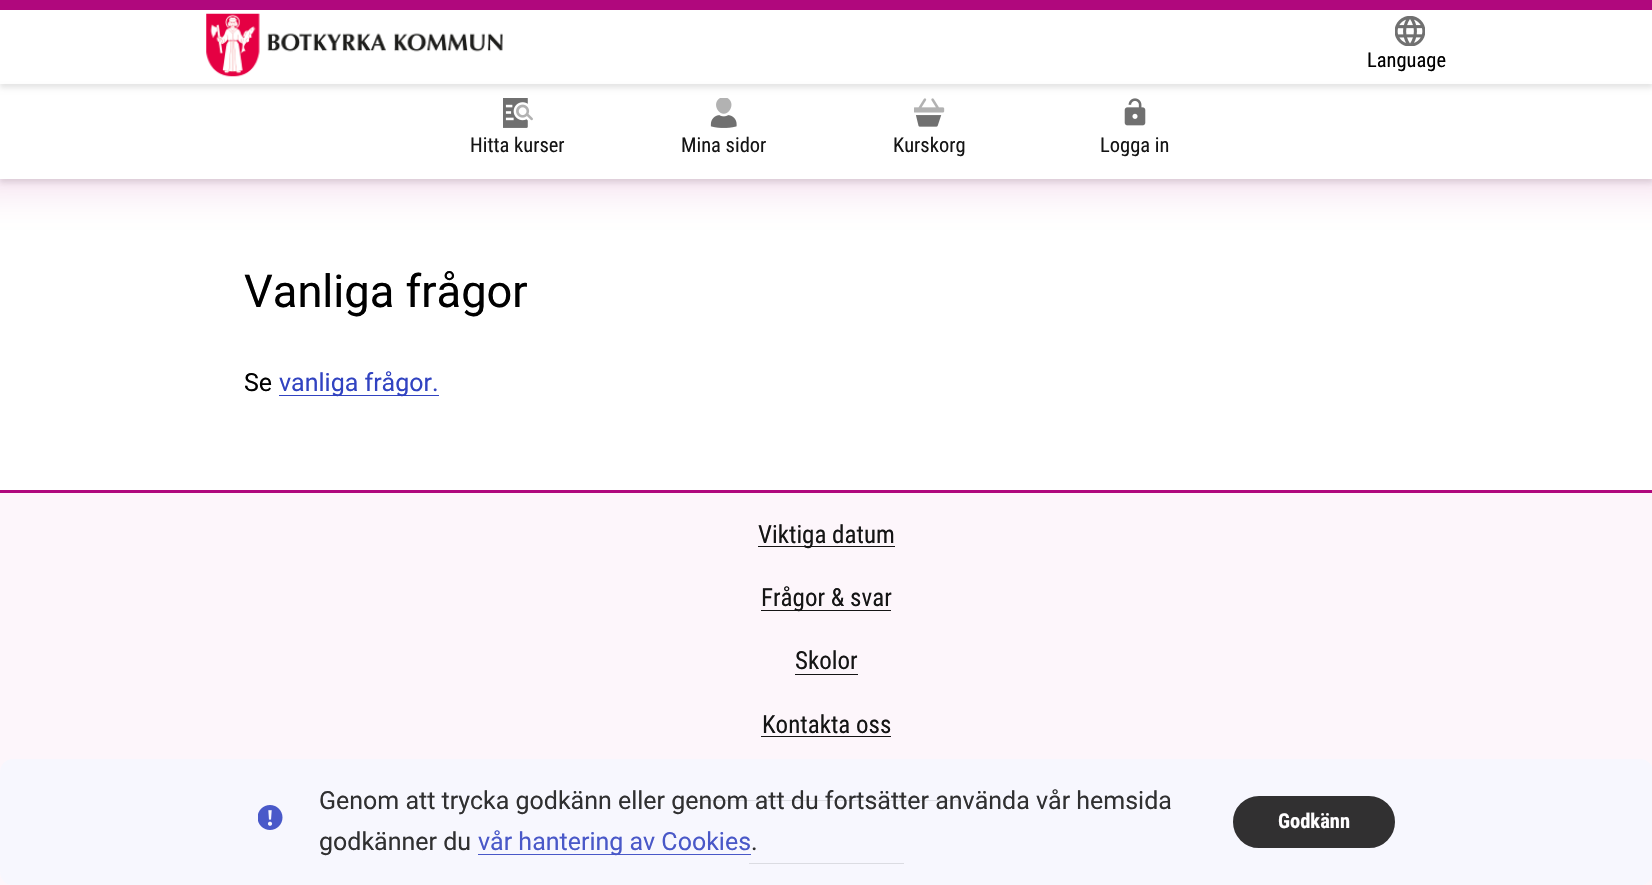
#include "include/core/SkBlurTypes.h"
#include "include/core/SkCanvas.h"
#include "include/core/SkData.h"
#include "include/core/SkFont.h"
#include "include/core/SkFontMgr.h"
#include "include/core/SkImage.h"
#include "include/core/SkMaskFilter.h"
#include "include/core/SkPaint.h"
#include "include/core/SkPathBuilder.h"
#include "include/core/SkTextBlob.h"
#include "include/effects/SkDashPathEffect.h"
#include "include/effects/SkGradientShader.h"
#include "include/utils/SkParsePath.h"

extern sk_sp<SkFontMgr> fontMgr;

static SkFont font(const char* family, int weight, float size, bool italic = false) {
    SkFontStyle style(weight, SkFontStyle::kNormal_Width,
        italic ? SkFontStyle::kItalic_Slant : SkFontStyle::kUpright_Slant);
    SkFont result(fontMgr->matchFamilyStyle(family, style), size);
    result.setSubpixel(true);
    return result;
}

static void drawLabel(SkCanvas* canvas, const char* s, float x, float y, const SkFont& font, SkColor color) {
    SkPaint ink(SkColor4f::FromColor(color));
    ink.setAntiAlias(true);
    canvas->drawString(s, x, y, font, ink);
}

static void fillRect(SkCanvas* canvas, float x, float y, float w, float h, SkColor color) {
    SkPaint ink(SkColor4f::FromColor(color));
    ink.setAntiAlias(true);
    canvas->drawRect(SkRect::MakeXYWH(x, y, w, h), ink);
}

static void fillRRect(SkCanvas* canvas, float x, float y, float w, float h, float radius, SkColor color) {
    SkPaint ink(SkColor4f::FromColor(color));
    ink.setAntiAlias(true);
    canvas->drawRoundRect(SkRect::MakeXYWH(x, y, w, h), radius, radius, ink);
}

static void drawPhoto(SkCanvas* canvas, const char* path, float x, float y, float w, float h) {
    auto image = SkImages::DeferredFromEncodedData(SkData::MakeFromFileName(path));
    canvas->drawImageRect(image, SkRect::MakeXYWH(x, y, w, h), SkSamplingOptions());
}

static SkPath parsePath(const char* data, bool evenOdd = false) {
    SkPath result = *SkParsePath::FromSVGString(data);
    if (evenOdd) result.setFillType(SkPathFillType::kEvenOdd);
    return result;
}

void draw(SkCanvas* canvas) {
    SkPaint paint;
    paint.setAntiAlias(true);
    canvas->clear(0xFFFFFFFF);
    canvas->save();
    canvas->clipPath(parsePath("M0 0H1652V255H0ZM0 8H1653V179H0Z", true), true);
    paint.setColor(0x33B0087D);
    paint.setMaskFilter(SkMaskFilter::MakeBlur(kNormal_SkBlurStyle, 25));
    canvas->drawRect(SkRect::MakeXYWH(-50, -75, 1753, 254), paint);
    paint.setMaskFilter(nullptr);
    canvas->restore();
    canvas->save();
    canvas->clipPath(parsePath("M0 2H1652V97H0ZM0 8H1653V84H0Z", true), true);
    paint.setColor(0x1A000000);
    paint.setMaskFilter(SkMaskFilter::MakeBlur(kNormal_SkBlurStyle, 2.5f));
    canvas->drawRect(SkRect::MakeXYWH(0, 11, 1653, 77), paint);
    paint.setMaskFilter(nullptr);
    canvas->restore();
    paint.setColor(0xFFB0087D);
    canvas->drawPath(parsePath("M0 0V10H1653V-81H1652V0Z"), paint);
    drawPhoto(canvas, "assets/img1.png", 206, 13, 297, 64);
    drawPhoto(canvas, "assets/img2.png", 1395, 16, 30, 30);
    SkFont font1 = font("Roboto Condensed", 400, 20.5f);
    drawLabel(canvas, "Language", 1367, 67, font1, 0xFF000000);
    canvas->save();
    canvas->clipPath(parsePath("M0 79H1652V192H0ZM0 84H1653V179H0Z", true), true);
    paint.setColor(0x1A000000);
    paint.setMaskFilter(SkMaskFilter::MakeBlur(kNormal_SkBlurStyle, 2.5f));
    canvas->drawRect(SkRect::MakeXYWH(0, 88, 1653, 95), paint);
    paint.setMaskFilter(nullptr);
    canvas->restore();
    drawPhoto(canvas, "assets/img3.png", 503, 98, 30, 30);
    drawLabel(canvas, "Hitta kurser", 470, 152, font1, 0xFF151515);
    drawPhoto(canvas, "assets/img4.png", 710, 98, 27, 30);
    drawLabel(canvas, "Mina sidor", 681, 152, font1, 0xFF151515);
    drawPhoto(canvas, "assets/img5.png", 914, 98, 31, 29);
    drawLabel(canvas, "Kurskorg", 893, 152, font1, 0xFF151515);
    drawPhoto(canvas, "assets/img6.png", 1124, 98, 22, 28);
    drawLabel(canvas, "Logga in", 1100, 152, font1, 0xFF151515);
    SkFont font2 = font("Roboto", 400, 45.25f);
    drawLabel(canvas, "Vanliga frågor", 244, 307, font2, 0xFF000000);
    SkFont font3 = font("Roboto", 400, 25);
    drawLabel(canvas, "Se", 244, 391, font3, 0xFF000000);
    fillRect(canvas, 279, 395, 160, 1, 0xFF3143C1);
    drawLabel(canvas, "vanliga frågor.", 279, 391, font3, 0xFF3143C1);
    fillRect(canvas, 0, 493, 1652, 392, 0xFFFDF6FB);
    fillRect(canvas, 0, 490, 1652, 3, 0xFFB0087D);
    fillRect(canvas, 758, 546, 137, 1, 0xFF151515);
    SkFont font4 = font("Roboto Condensed", 400, 25);
    drawLabel(canvas, "Viktiga datum", 758, 543, font4, 0xFF151515);
    fillRect(canvas, 761, 610, 130, 1, 0xFF151515);
    drawLabel(canvas, "Frågor & svar", 761, 606, font4, 0xFF151515);
    drawLabel(canvas, "Skolor", 795, 669, font4, 0xFF151515);
    fillRect(canvas, 795, 674, 63, 1, 0xFF151515);
    drawLabel(canvas, "Kontakta oss", 762, 733, font4, 0xFF151515);
    fillRect(canvas, 761, 736, 130, 1, 0xFF151515);
    fillRect(canvas, 695, 800, 263, 1, 0xFF151515);
    fillRect(canvas, 749, 863, 155, 1, 0xFF151515);
    fillRRect(canvas, 0, 759, 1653, 126, 13, 0xE0F6F7FE);
    drawPhoto(canvas, "assets/img7.png", 258, 805, 25, 25);
    drawLabel(canvas, "Genom att trycka godkänn eller genom att du fortsätter använda vår hemsida", 319, 809, font3, 0xFF303031);
    drawLabel(canvas, "godkänner du", 319, 850, font3, 0xFF303031);
    fillRect(canvas, 478, 854, 273, 1, 0xFF4958C8);
    drawLabel(canvas, "vår hantering av Cookies", 478, 850, font3, 0xFF4958C8);
    drawLabel(canvas, ".", 751, 850, font3, 0xFF303031);
    paint.setColor(0xFF313031);
    canvas->drawRoundRect(SkRect::MakeXYWH(1234.5f, 797.5f, 159, 49), 24.5f, 24.5f, paint);
    paint.setStroke(true);
    paint.setStrokeWidth(3);
    canvas->drawRoundRect(SkRect::MakeXYWH(1234.5f, 797.5f, 159, 49), 24.5f, 24.5f, paint);
    SkFont font5 = font("Roboto Condensed", 700, 20.5f);
    drawLabel(canvas, "Godkänn", 1278, 828, font5, 0xFFFFFEFF);
}
